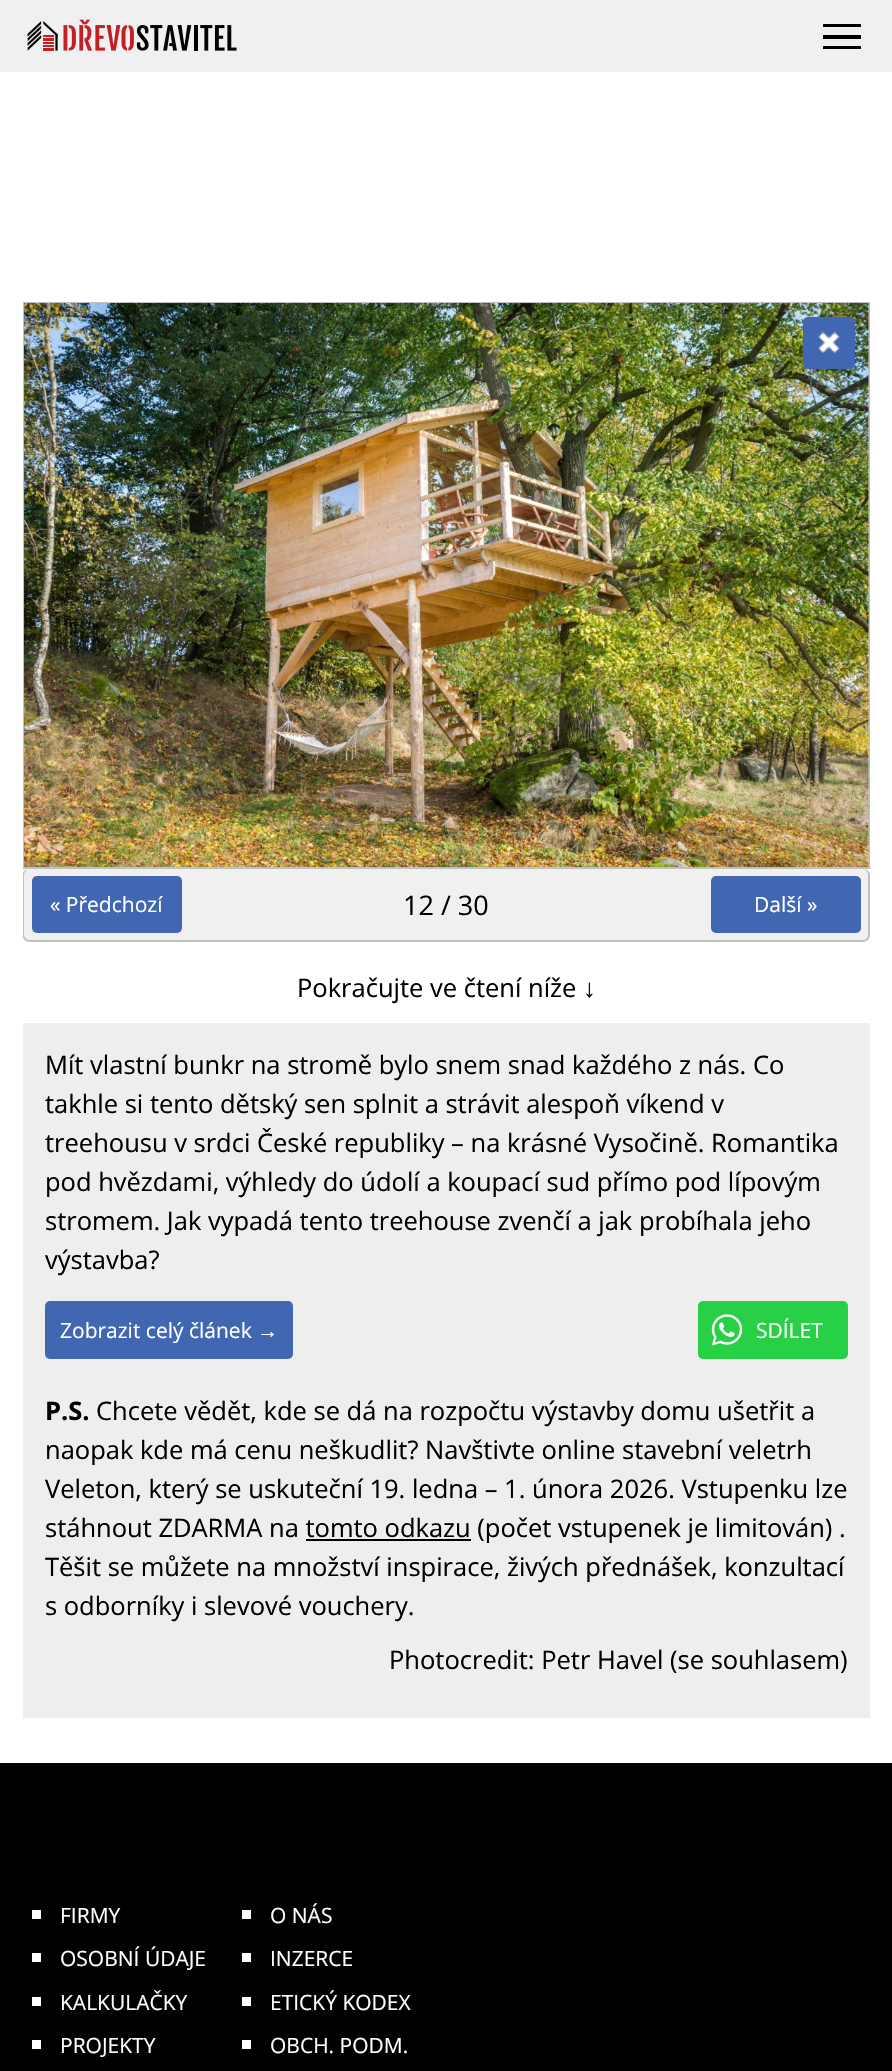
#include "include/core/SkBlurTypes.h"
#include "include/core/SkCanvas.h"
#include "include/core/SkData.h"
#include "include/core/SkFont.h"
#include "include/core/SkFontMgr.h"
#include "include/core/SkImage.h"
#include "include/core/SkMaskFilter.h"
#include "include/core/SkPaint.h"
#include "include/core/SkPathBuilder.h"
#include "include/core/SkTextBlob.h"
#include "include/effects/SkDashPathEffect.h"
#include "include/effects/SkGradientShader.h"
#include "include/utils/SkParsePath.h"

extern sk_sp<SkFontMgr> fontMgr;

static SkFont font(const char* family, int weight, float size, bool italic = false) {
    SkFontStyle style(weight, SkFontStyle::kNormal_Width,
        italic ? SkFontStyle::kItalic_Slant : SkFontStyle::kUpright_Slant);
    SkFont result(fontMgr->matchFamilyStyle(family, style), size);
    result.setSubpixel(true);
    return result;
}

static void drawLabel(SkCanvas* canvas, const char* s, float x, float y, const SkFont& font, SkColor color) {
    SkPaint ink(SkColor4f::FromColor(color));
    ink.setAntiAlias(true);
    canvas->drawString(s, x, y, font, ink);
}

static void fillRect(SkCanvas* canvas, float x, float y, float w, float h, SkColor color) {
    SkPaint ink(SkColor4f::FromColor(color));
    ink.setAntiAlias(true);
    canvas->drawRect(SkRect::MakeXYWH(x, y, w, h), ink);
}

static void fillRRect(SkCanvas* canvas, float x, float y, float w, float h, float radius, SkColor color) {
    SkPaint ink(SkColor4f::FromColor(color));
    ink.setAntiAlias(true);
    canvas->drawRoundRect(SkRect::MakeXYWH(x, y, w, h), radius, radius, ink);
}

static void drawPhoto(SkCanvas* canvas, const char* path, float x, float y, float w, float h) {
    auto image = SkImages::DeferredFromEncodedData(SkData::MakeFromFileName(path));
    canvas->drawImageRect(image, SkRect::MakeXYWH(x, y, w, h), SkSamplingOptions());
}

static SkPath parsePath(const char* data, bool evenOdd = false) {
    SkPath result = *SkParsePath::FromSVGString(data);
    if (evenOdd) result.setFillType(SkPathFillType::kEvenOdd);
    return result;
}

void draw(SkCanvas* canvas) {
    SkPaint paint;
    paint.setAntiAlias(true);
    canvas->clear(0xFFFFFFFF);
    fillRect(canvas, 0, 0, 892, 72, 0xFFF0F0F0);
    drawPhoto(canvas, "assets/img1.png", 27, 19, 210, 32);
    fillRRect(canvas, 823, 24, 38, 3, 0.5f, 0xFF000000);
    fillRRect(canvas, 823, 46, 38, 3, 0.5f, 0xFF000000);
    fillRRect(canvas, 823, 35, 38, 4, 0.5f, 0xFF000000);
    paint.setStroke(true);
    paint.setStrokeWidth(2);
    paint.setColor(0xFFC0C0C0);
    canvas->drawRect(SkRect::MakeXYWH(24, 303, 845, 565), paint);
    drawPhoto(canvas, "assets/img2.png", 24, 303, 845, 564);
    fillRRect(canvas, 803, 317, 52, 52, 5, 0xFF4267B2);
    drawPhoto(canvas, "assets/img3.png", 817, 331, 23, 22);
    fillRRect(canvas, 23, 869, 847, 73, 8, 0xFFF0F0F0);
    canvas->save();
    canvas->clipRect(SkRect::MakeXYWH(23, 0, 847, 1718));
    paint.setStroke(false);
    canvas->drawPath(parsePath("M30 868H862C867 868 870 872 870 876V934C870 939 867 942 862 942H30C26 942 22 939 22 934V876C22 872 26 868 30 868ZM30 868H862C866 868 868 872 868 876V934C868 938 866 940 862 940H30C27 940 24 938 24 934V876C24 872 27 868 30 868Z", true), paint);
    canvas->restore();
    fillRRect(canvas, 32, 876, 150, 57, 5, 0xFF4267B2);
    SkFont font1 = font("Open Sans", 400, 21);
    drawLabel(canvas, "« Předchozí", 50, 912, font1, 0xFFFFFFFF);
    SkFont font2 = font("Open Sans", 400, 27);
    drawLabel(canvas, "12 / 30", 403, 915, font2, 0xFF000000);
    fillRRect(canvas, 711, 876, 150, 57, 5, 0xFF4267B2);
    drawLabel(canvas, "Další »", 754, 912, font1, 0xFFFFFFFF);
    SkFont font3 = font("Open Sans", 400, 25.5f);
    drawLabel(canvas, "Pokračujte ve čtení níže", 297, 997, font3, 0xFF000000);
    SkFont font4 = font("Liberation Sans", 400, 25.5f);
    drawLabel(canvas, "↓", 583, 997, font4, 0xFF000000);
    fillRect(canvas, 23, 1023, 847, 695, 0xFFEEEEEE);
    drawLabel(canvas, "Mít vlastní bunkr na stromě bylo snem snad každého z nás. Co", 45, 1074, font3, 0xFF000000);
    drawLabel(canvas, "takhle si tento dětský sen splnit a strávit alespoň víkend v", 45, 1113, font3, 0xFF000000);
    drawLabel(canvas, "treehousu v srdci České republiky – na krásné Vysočině. Romantika", 45, 1152, font3, 0xFF000000);
    drawLabel(canvas, "pod hvězdami, výhledy do údolí a koupací sud přímo pod lípovým", 45, 1191, font3, 0xFF000000);
    drawLabel(canvas, "stromem. Jak vypadá tento treehouse zvenčí a jak probíhala jeho", 45, 1230, font3, 0xFF000000);
    drawLabel(canvas, "výstavba?", 45, 1269, font3, 0xFF000000);
    fillRRect(canvas, 45, 1301, 248, 58, 5, 0xFF4267B2);
    drawLabel(canvas, "Zobrazit celý článek", 60, 1338, font1, 0xFFFFFFFF);
    SkFont font5 = font("Liberation Sans", 400, 21);
    drawLabel(canvas, "→", 257, 1338, font5, 0xFFFFFFFF);
    fillRRect(canvas, 698, 1301, 150, 58, 5, 0xFF27D045);
    drawPhoto(canvas, "assets/img4.png", 711, 1314, 32, 32);
    drawLabel(canvas, "SDÍLET", 756, 1338, font1, 0xFFFFFFFF);
    SkFont font6 = font("Open Sans", 700, 25.5f);
    drawLabel(canvas, "P.S.", 45, 1420, font6, 0xFF000000);
    drawLabel(canvas, "Chcete vědět, kde se dá na rozpočtu výstavby domu ušetřit a", 96, 1420, font3, 0xFF000000);
    drawLabel(canvas, "naopak kde má cenu neškudlit? Navštivte online stavební veletrh", 45, 1459, font3, 0xFF000000);
    drawLabel(canvas, "Veleton, který se uskuteční 19. ledna – 1. února 2026. Vstupenku lze", 45, 1498, font3, 0xFF000000);
    drawLabel(canvas, "stáhnout ZDARMA na tomto odkazu (počet vstupenek je limitován) .", 45, 1537, font3, 0xFF000000);
    fillRect(canvas, 306, 1539, 165, 2, 0xFF000000);
    drawLabel(canvas, "Těšit se můžete na množství inspirace, živých přednášek, konzultací", 45, 1576, font3, 0xFF000000);
    drawLabel(canvas, "s odborníky i slevové vouchery.", 45, 1615, font3, 0xFF000000);
    drawLabel(canvas, "Photocredit: Petr Havel (se souhlasem)", 389, 1669, font3, 0xFF000000);
    fillRect(canvas, 0, 1763, 892, 308, 0xFF000000);
    fillRect(canvas, 32, 1910, 9, 9, 0xFFFFFFFF);
    drawLabel(canvas, "FIRMY", 60, 1923, font1, 0xFFFFFFFF);
    fillRect(canvas, 32, 1953, 9, 9, 0xFFFFFFFF);
    drawLabel(canvas, "OSOBNÍ ÚDAJE", 60, 1966, font1, 0xFFFFFFFF);
    fillRect(canvas, 32, 1997, 9, 9, 0xFFFFFFFF);
    drawLabel(canvas, "KALKULAČKY", 60, 2010, font1, 0xFFFFFFFF);
    fillRect(canvas, 32, 2040, 9, 9, 0xFFFFFFFF);
    drawLabel(canvas, "PROJEKTY", 60, 2053, font1, 0xFFFFFFFF);
    fillRect(canvas, 242, 1910, 9, 9, 0xFFFFFFFF);
    drawLabel(canvas, "O NÁS", 270, 1923, font1, 0xFFFFFFFF);
    fillRect(canvas, 242, 1953, 9, 9, 0xFFFFFFFF);
    drawLabel(canvas, "INZERCE", 270, 1966, font1, 0xFFFFFFFF);
    fillRect(canvas, 242, 1997, 9, 9, 0xFFFFFFFF);
    drawLabel(canvas, "ETICKÝ KODEX", 270, 2010, font1, 0xFFFFFFFF);
    fillRect(canvas, 242, 2040, 9, 9, 0xFFFFFFFF);
    drawLabel(canvas, "OBCH. PODM.", 270, 2053, font1, 0xFFFFFFFF);
}
